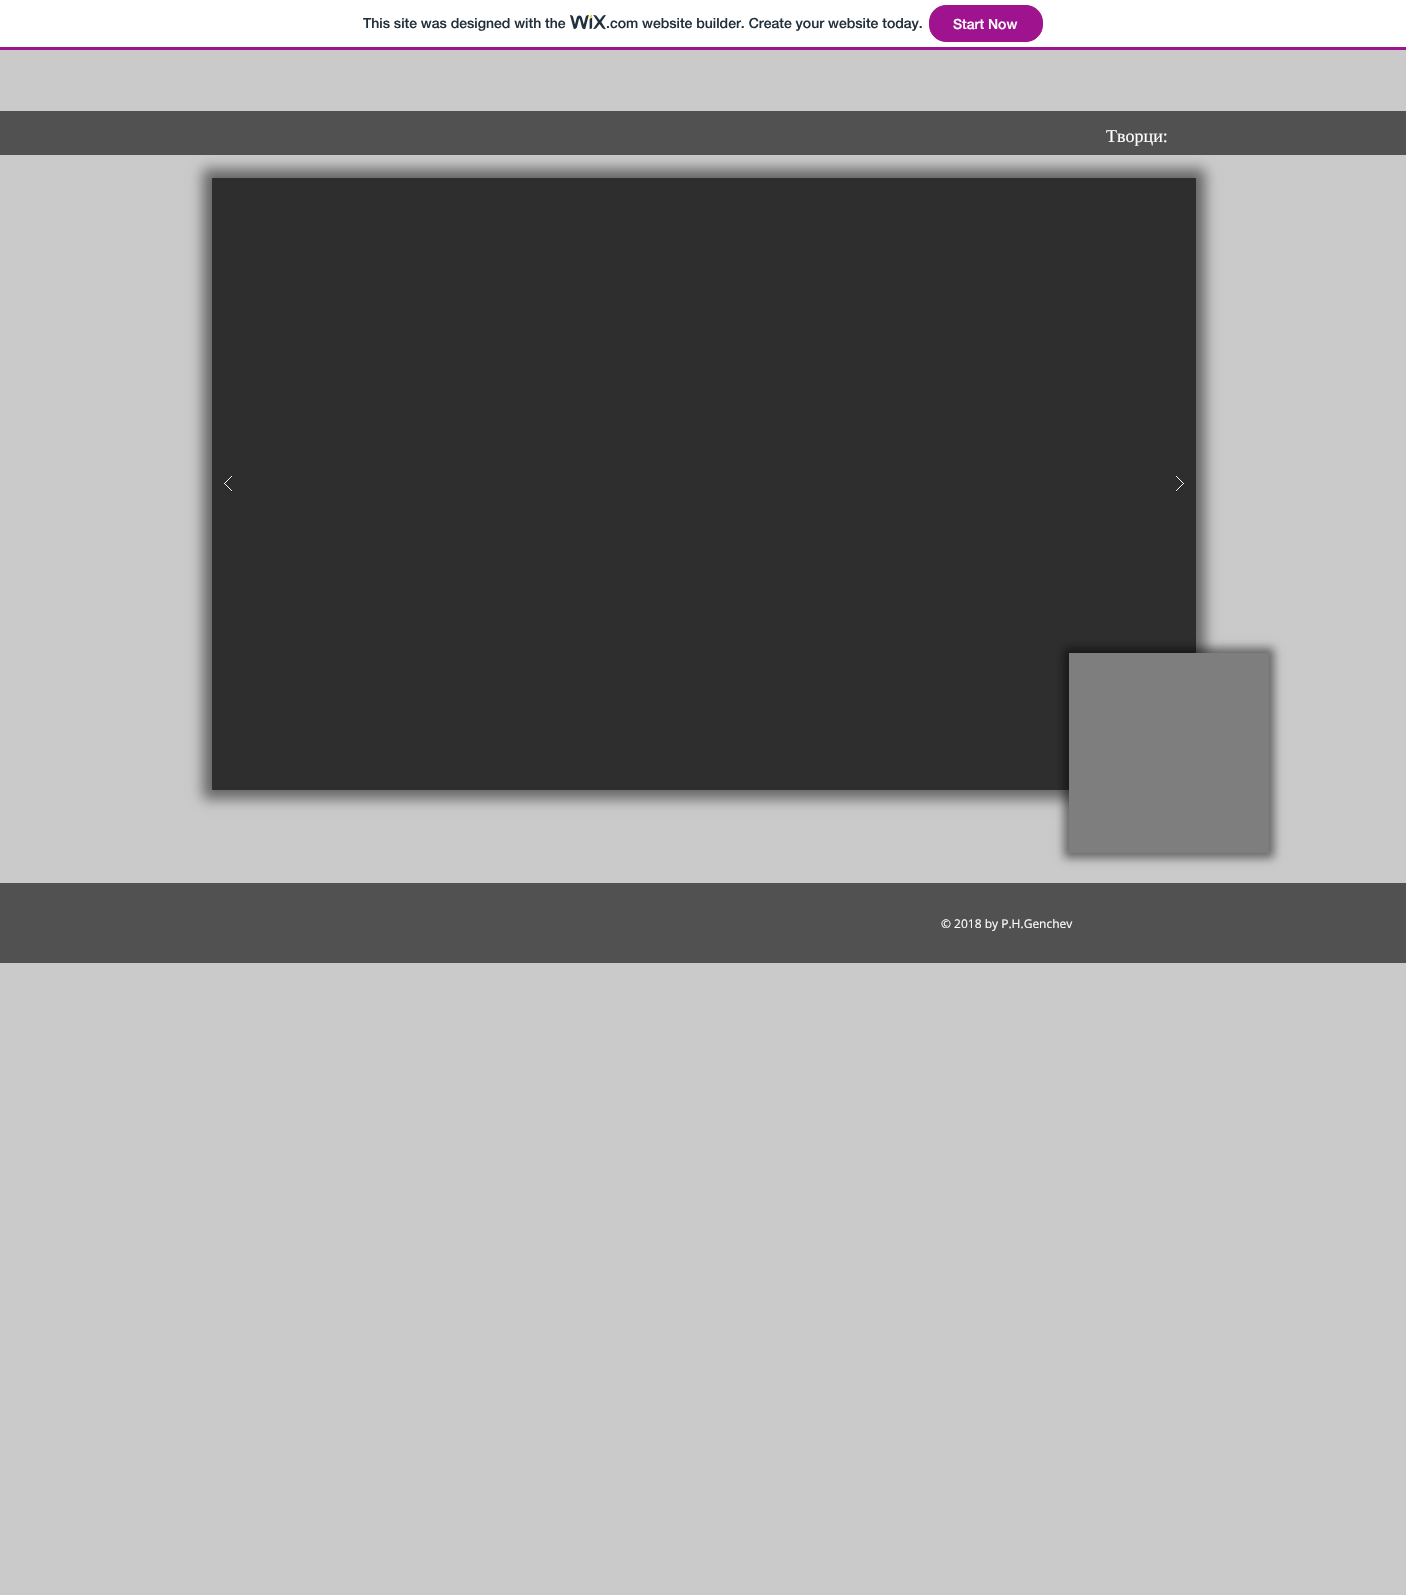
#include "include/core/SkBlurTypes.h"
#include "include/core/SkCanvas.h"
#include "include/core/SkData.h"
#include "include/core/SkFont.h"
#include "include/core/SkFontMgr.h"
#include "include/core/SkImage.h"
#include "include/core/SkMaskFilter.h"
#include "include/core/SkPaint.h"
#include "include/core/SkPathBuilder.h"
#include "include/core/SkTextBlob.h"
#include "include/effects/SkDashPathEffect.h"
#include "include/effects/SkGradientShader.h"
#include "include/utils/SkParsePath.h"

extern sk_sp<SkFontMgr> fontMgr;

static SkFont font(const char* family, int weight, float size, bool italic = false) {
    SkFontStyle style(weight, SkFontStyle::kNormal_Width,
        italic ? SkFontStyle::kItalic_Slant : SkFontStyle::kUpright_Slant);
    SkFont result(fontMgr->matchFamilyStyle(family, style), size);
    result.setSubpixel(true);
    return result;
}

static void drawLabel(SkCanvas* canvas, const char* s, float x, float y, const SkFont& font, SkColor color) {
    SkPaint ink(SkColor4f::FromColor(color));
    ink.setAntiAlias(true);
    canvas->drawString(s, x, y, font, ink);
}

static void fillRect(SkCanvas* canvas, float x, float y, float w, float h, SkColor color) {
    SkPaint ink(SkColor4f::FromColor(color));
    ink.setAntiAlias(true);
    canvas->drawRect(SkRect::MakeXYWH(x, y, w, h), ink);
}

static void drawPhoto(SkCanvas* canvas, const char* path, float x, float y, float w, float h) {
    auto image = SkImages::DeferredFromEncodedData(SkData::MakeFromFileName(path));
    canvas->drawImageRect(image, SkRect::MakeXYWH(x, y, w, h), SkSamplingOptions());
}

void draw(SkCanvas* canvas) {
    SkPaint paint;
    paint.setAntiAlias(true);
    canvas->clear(0xFFFFFFFF);
    fillRect(canvas, 0, 47, 1406, 3, 0xFFA0138E);
    SkFont font1 = font("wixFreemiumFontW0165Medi", 500, 14);
    drawLabel(canvas, "This site was designed with the", 363, 28, font1, 0xFF20303C);
    drawPhoto(canvas, "assets/img1.png", 570, 15, 36, 15);
    drawLabel(canvas, ".com website builder. Create your website today.", 606, 28, font1, 0xFF20303C);
    paint.setColor(0xFFA0138E);
    canvas->drawRoundRect(SkRect::MakeXYWH(929.5f, 5.5f, 113, 36), 16.5f, 16.5f, paint);
    paint.setStroke(true);
    paint.setStrokeWidth(1);
    canvas->drawRoundRect(SkRect::MakeXYWH(929.5f, 5.5f, 113, 36), 16.5f, 16.5f, paint);
    drawLabel(canvas, "Start Now", 953, 29, font1, 0xFFFFFFFF);
    fillRect(canvas, 0, 50, 1406, 1545, 0xFFCACACA);
    fillRect(canvas, 0, 111, 1406, 44, 0xFF515151);
    SkFont font2 = font("Liberation Serif", 400, 18);
    drawLabel(canvas, "Творци:", 1106, 142, font2, 0xFFFFFFFF);
    paint.setStroke(false);
    paint.setColor(0x80000000);
    paint.setMaskFilter(SkMaskFilter::MakeBlur(kNormal_SkBlurStyle, 6.5f));
    canvas->drawRect(SkRect::MakeXYWH(203, 169, 1002, 630), paint);
    paint.setMaskFilter(nullptr);
    fillRect(canvas, 212, 178, 984, 612, 0xFF2F2E2E);
    drawPhoto(canvas, "assets/img2.png", 224, 476, 8, 16);
    drawPhoto(canvas, "assets/img3.png", 1176, 476, 8, 16);
    paint.setMaskFilter(SkMaskFilter::MakeBlur(kNormal_SkBlurStyle, 4.5f));
    canvas->drawRect(SkRect::MakeXYWH(1064, 648, 210, 210), paint);
    paint.setMaskFilter(nullptr);
    fillRect(canvas, 1069, 653, 200, 200, 0xFF7F7E7E);
    fillRect(canvas, 0, 883, 1406, 80, 0xFF515151);
    SkFont font3 = font("Open Sans", 400, 12);
    drawLabel(canvas, "© 2018 by P.H.Genchev", 941, 928, font3, 0xFFFFFFFF);
}
